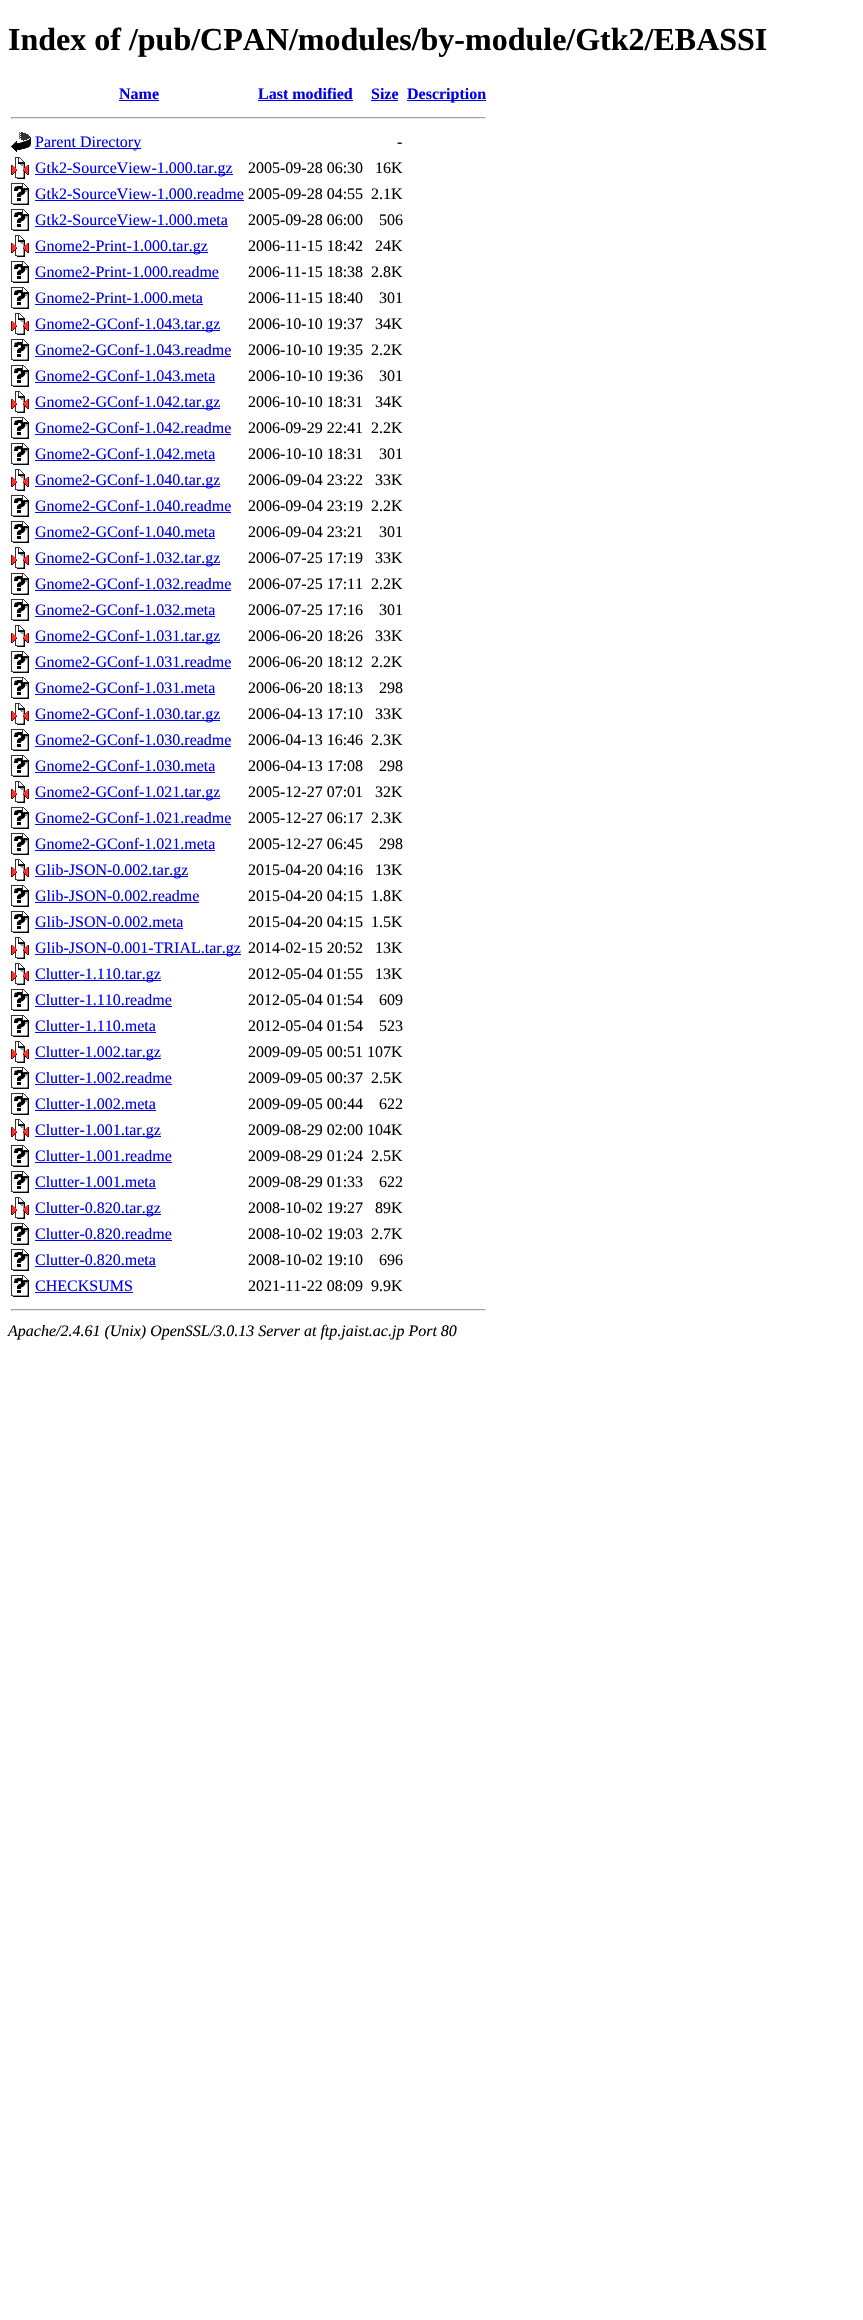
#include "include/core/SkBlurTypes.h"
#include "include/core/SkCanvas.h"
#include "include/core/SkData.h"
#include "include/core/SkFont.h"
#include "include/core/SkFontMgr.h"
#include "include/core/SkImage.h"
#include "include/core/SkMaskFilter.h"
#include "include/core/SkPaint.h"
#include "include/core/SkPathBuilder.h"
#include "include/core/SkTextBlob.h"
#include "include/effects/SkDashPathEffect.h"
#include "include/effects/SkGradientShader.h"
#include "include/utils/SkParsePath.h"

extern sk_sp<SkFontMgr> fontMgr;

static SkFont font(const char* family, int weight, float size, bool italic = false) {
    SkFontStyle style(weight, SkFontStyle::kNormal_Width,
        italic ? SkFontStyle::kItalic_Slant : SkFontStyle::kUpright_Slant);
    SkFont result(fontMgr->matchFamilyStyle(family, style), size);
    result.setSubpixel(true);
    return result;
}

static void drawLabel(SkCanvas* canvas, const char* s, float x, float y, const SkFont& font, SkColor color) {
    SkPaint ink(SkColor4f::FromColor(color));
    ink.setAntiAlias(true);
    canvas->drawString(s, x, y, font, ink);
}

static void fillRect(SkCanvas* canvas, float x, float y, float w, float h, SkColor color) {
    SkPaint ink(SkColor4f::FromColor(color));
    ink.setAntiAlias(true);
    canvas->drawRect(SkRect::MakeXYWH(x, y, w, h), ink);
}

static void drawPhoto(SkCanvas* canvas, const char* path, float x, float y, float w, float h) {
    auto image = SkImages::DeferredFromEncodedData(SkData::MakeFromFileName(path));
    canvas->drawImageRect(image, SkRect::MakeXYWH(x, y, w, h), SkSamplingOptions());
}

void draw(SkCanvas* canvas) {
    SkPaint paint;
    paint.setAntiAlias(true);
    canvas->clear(0xFFFFFFFF);
    SkFont font1 = font("Liberation Serif", 700, 32);
    drawLabel(canvas, "Index of /pub/CPAN/modules/by-module/Gtk2/EBASSI", 8, 50, font1, 0xFF000000);
    SkFont font2 = font("Liberation Serif", 700, 16);
    drawLabel(canvas, "Name", 119, 99, font2, 0xFF0000EE);
    fillRect(canvas, 119, 100, 40, 1, 0xFF0000EE);
    drawLabel(canvas, "Last modified", 258, 99, font2, 0xFF0000EE);
    fillRect(canvas, 258, 100, 95, 1, 0xFF0000EE);
    drawLabel(canvas, "Size", 371, 99, font2, 0xFF0000EE);
    fillRect(canvas, 371, 100, 27, 1, 0xFF0000EE);
    fillRect(canvas, 407, 100, 79, 1, 0xFF0000EE);
    drawLabel(canvas, "Description", 407, 99, font2, 0xFF0000EE);
    fillRect(canvas, 11, 117, 475, 1, 0xFF9F9F9F);
    fillRect(canvas, 485, 117, 1, 2, 0xFFEEEEEE);
    fillRect(canvas, 11, 118, 475, 1, 0xFFEEEEEE);
    fillRect(canvas, 11, 117, 1, 2, 0xFF9F9F9F);
    drawPhoto(canvas, "assets/img1.png", 11, 132, 20, 20);
    fillRect(canvas, 35, 148, 106, 1, 0xFF0000EE);
    SkFont font3 = font("Liberation Serif", 400, 16);
    drawLabel(canvas, "Parent Directory", 35, 147, font3, 0xFF0000EE);
    drawLabel(canvas, "-", 397, 147, font3, 0xFF000000);
    drawPhoto(canvas, "assets/img2.png", 11, 157, 18, 22);
    fillRect(canvas, 35, 174, 198, 1, 0xFF0000EE);
    drawLabel(canvas, "Gtk2-SourceView-1.000.tar.gz", 35, 173, font3, 0xFF0000EE);
    drawLabel(canvas, "2005-09-28 06:30", 248, 173, font3, 0xFF000000);
    drawLabel(canvas, "16K", 375, 173, font3, 0xFF000000);
    drawPhoto(canvas, "assets/img3.png", 11, 183, 18, 22);
    drawLabel(canvas, "Gtk2-SourceView-1.000.readme", 35, 199, font3, 0xFF0000EE);
    fillRect(canvas, 35, 200, 209, 1, 0xFF0000EE);
    drawLabel(canvas, "2005-09-28 04:55", 248, 199, font3, 0xFF000000);
    drawLabel(canvas, "2.1K", 371, 199, font3, 0xFF000000);
    drawPhoto(canvas, "assets/img3.png", 11, 209, 18, 22);
    drawLabel(canvas, "Gtk2-SourceView-1.000.meta", 35, 225, font3, 0xFF0000EE);
    fillRect(canvas, 35, 226, 193, 1, 0xFF0000EE);
    drawLabel(canvas, "2005-09-28 06:00", 248, 225, font3, 0xFF000000);
    drawLabel(canvas, "506", 379, 225, font3, 0xFF000000);
    drawPhoto(canvas, "assets/img2.png", 11, 235, 18, 22);
    fillRect(canvas, 35, 252, 173, 1, 0xFF0000EE);
    drawLabel(canvas, "Gnome2-Print-1.000.tar.gz", 35, 251, font3, 0xFF0000EE);
    drawLabel(canvas, "2006-11-15 18:42", 248, 251, font3, 0xFF000000);
    drawLabel(canvas, "24K", 375, 251, font3, 0xFF000000);
    drawPhoto(canvas, "assets/img3.png", 11, 261, 18, 22);
    drawLabel(canvas, "Gnome2-Print-1.000.readme", 35, 277, font3, 0xFF0000EE);
    fillRect(canvas, 35, 278, 184, 1, 0xFF0000EE);
    drawLabel(canvas, "2006-11-15 18:38", 248, 277, font3, 0xFF000000);
    drawLabel(canvas, "2.8K", 371, 277, font3, 0xFF000000);
    drawPhoto(canvas, "assets/img3.png", 11, 287, 18, 22);
    drawLabel(canvas, "Gnome2-Print-1.000.meta", 35, 303, font3, 0xFF0000EE);
    fillRect(canvas, 35, 304, 168, 1, 0xFF0000EE);
    drawLabel(canvas, "2006-11-15 18:40", 248, 303, font3, 0xFF000000);
    drawLabel(canvas, "301", 379, 303, font3, 0xFF000000);
    drawPhoto(canvas, "assets/img2.png", 11, 313, 18, 22);
    fillRect(canvas, 35, 330, 185, 1, 0xFF0000EE);
    drawLabel(canvas, "Gnome2-GConf-1.043.tar.gz", 35, 329, font3, 0xFF0000EE);
    drawLabel(canvas, "2006-10-10 19:37", 248, 329, font3, 0xFF000000);
    drawLabel(canvas, "34K", 375, 329, font3, 0xFF000000);
    drawPhoto(canvas, "assets/img3.png", 11, 339, 18, 22);
    drawLabel(canvas, "Gnome2-GConf-1.043.readme", 35, 355, font3, 0xFF0000EE);
    fillRect(canvas, 35, 356, 196, 1, 0xFF0000EE);
    drawLabel(canvas, "2006-10-10 19:35", 248, 355, font3, 0xFF000000);
    drawLabel(canvas, "2.2K", 371, 355, font3, 0xFF000000);
    drawPhoto(canvas, "assets/img3.png", 11, 365, 18, 22);
    drawLabel(canvas, "Gnome2-GConf-1.043.meta", 35, 381, font3, 0xFF0000EE);
    fillRect(canvas, 35, 382, 180, 1, 0xFF0000EE);
    drawLabel(canvas, "2006-10-10 19:36", 248, 381, font3, 0xFF000000);
    drawLabel(canvas, "301", 379, 381, font3, 0xFF000000);
    drawPhoto(canvas, "assets/img2.png", 11, 391, 18, 22);
    fillRect(canvas, 35, 408, 185, 1, 0xFF0000EE);
    drawLabel(canvas, "Gnome2-GConf-1.042.tar.gz", 35, 407, font3, 0xFF0000EE);
    drawLabel(canvas, "2006-10-10 18:31", 248, 407, font3, 0xFF000000);
    drawLabel(canvas, "34K", 375, 407, font3, 0xFF000000);
    drawPhoto(canvas, "assets/img3.png", 11, 417, 18, 22);
    drawLabel(canvas, "Gnome2-GConf-1.042.readme", 35, 433, font3, 0xFF0000EE);
    fillRect(canvas, 35, 434, 196, 1, 0xFF0000EE);
    drawLabel(canvas, "2006-09-29 22:41", 248, 433, font3, 0xFF000000);
    drawLabel(canvas, "2.2K", 371, 433, font3, 0xFF000000);
    drawPhoto(canvas, "assets/img3.png", 11, 443, 18, 22);
    drawLabel(canvas, "Gnome2-GConf-1.042.meta", 35, 459, font3, 0xFF0000EE);
    fillRect(canvas, 35, 460, 180, 1, 0xFF0000EE);
    drawLabel(canvas, "2006-10-10 18:31", 248, 459, font3, 0xFF000000);
    drawLabel(canvas, "301", 379, 459, font3, 0xFF000000);
    drawPhoto(canvas, "assets/img2.png", 11, 469, 18, 22);
    fillRect(canvas, 35, 486, 185, 1, 0xFF0000EE);
    drawLabel(canvas, "Gnome2-GConf-1.040.tar.gz", 35, 485, font3, 0xFF0000EE);
    drawLabel(canvas, "2006-09-04 23:22", 248, 485, font3, 0xFF000000);
    drawLabel(canvas, "33K", 375, 485, font3, 0xFF000000);
    drawPhoto(canvas, "assets/img3.png", 11, 495, 18, 22);
    drawLabel(canvas, "Gnome2-GConf-1.040.readme", 35, 511, font3, 0xFF0000EE);
    fillRect(canvas, 35, 512, 196, 1, 0xFF0000EE);
    drawLabel(canvas, "2006-09-04 23:19", 248, 511, font3, 0xFF000000);
    drawLabel(canvas, "2.2K", 371, 511, font3, 0xFF000000);
    drawPhoto(canvas, "assets/img3.png", 11, 521, 18, 22);
    drawLabel(canvas, "Gnome2-GConf-1.040.meta", 35, 537, font3, 0xFF0000EE);
    fillRect(canvas, 35, 538, 180, 1, 0xFF0000EE);
    drawLabel(canvas, "2006-09-04 23:21", 248, 537, font3, 0xFF000000);
    drawLabel(canvas, "301", 379, 537, font3, 0xFF000000);
    drawPhoto(canvas, "assets/img2.png", 11, 547, 18, 22);
    fillRect(canvas, 35, 564, 185, 1, 0xFF0000EE);
    drawLabel(canvas, "Gnome2-GConf-1.032.tar.gz", 35, 563, font3, 0xFF0000EE);
    drawLabel(canvas, "2006-07-25 17:19", 248, 563, font3, 0xFF000000);
    drawLabel(canvas, "33K", 375, 563, font3, 0xFF000000);
    drawPhoto(canvas, "assets/img3.png", 11, 573, 18, 22);
    drawLabel(canvas, "Gnome2-GConf-1.032.readme", 35, 589, font3, 0xFF0000EE);
    fillRect(canvas, 35, 590, 196, 1, 0xFF0000EE);
    drawLabel(canvas, "2006-07-25 17:11", 248, 589, font3, 0xFF000000);
    drawLabel(canvas, "2.2K", 371, 589, font3, 0xFF000000);
    drawPhoto(canvas, "assets/img3.png", 11, 599, 18, 22);
    drawLabel(canvas, "Gnome2-GConf-1.032.meta", 35, 615, font3, 0xFF0000EE);
    fillRect(canvas, 35, 616, 180, 1, 0xFF0000EE);
    drawLabel(canvas, "2006-07-25 17:16", 248, 615, font3, 0xFF000000);
    drawLabel(canvas, "301", 379, 615, font3, 0xFF000000);
    drawPhoto(canvas, "assets/img2.png", 11, 625, 18, 22);
    fillRect(canvas, 35, 642, 185, 1, 0xFF0000EE);
    drawLabel(canvas, "Gnome2-GConf-1.031.tar.gz", 35, 641, font3, 0xFF0000EE);
    drawLabel(canvas, "2006-06-20 18:26", 248, 641, font3, 0xFF000000);
    drawLabel(canvas, "33K", 375, 641, font3, 0xFF000000);
    drawPhoto(canvas, "assets/img3.png", 11, 651, 18, 22);
    drawLabel(canvas, "Gnome2-GConf-1.031.readme", 35, 667, font3, 0xFF0000EE);
    fillRect(canvas, 35, 668, 196, 1, 0xFF0000EE);
    drawLabel(canvas, "2006-06-20 18:12", 248, 667, font3, 0xFF000000);
    drawLabel(canvas, "2.2K", 371, 667, font3, 0xFF000000);
    drawPhoto(canvas, "assets/img3.png", 11, 677, 18, 22);
    drawLabel(canvas, "Gnome2-GConf-1.031.meta", 35, 693, font3, 0xFF0000EE);
    fillRect(canvas, 35, 694, 180, 1, 0xFF0000EE);
    drawLabel(canvas, "2006-06-20 18:13", 248, 693, font3, 0xFF000000);
    drawLabel(canvas, "298", 379, 693, font3, 0xFF000000);
    drawPhoto(canvas, "assets/img2.png", 11, 703, 18, 22);
    fillRect(canvas, 35, 720, 185, 1, 0xFF0000EE);
    drawLabel(canvas, "Gnome2-GConf-1.030.tar.gz", 35, 719, font3, 0xFF0000EE);
    drawLabel(canvas, "2006-04-13 17:10", 248, 719, font3, 0xFF000000);
    drawLabel(canvas, "33K", 375, 719, font3, 0xFF000000);
    drawPhoto(canvas, "assets/img3.png", 11, 729, 18, 22);
    drawLabel(canvas, "Gnome2-GConf-1.030.readme", 35, 745, font3, 0xFF0000EE);
    fillRect(canvas, 35, 746, 196, 1, 0xFF0000EE);
    drawLabel(canvas, "2006-04-13 16:46", 248, 745, font3, 0xFF000000);
    drawLabel(canvas, "2.3K", 371, 745, font3, 0xFF000000);
    drawPhoto(canvas, "assets/img3.png", 11, 755, 18, 22);
    drawLabel(canvas, "Gnome2-GConf-1.030.meta", 35, 771, font3, 0xFF0000EE);
    fillRect(canvas, 35, 772, 180, 1, 0xFF0000EE);
    drawLabel(canvas, "2006-04-13 17:08", 248, 771, font3, 0xFF000000);
    drawLabel(canvas, "298", 379, 771, font3, 0xFF000000);
    drawPhoto(canvas, "assets/img2.png", 11, 781, 18, 22);
    fillRect(canvas, 35, 798, 185, 1, 0xFF0000EE);
    drawLabel(canvas, "Gnome2-GConf-1.021.tar.gz", 35, 797, font3, 0xFF0000EE);
    drawLabel(canvas, "2005-12-27 07:01", 248, 797, font3, 0xFF000000);
    drawLabel(canvas, "32K", 375, 797, font3, 0xFF000000);
    drawPhoto(canvas, "assets/img3.png", 11, 807, 18, 22);
    drawLabel(canvas, "Gnome2-GConf-1.021.readme", 35, 823, font3, 0xFF0000EE);
    fillRect(canvas, 35, 824, 196, 1, 0xFF0000EE);
    drawLabel(canvas, "2005-12-27 06:17", 248, 823, font3, 0xFF000000);
    drawLabel(canvas, "2.3K", 371, 823, font3, 0xFF000000);
    drawPhoto(canvas, "assets/img3.png", 11, 833, 18, 22);
    drawLabel(canvas, "Gnome2-GConf-1.021.meta", 35, 849, font3, 0xFF0000EE);
    fillRect(canvas, 35, 850, 180, 1, 0xFF0000EE);
    drawLabel(canvas, "2005-12-27 06:45", 248, 849, font3, 0xFF000000);
    drawLabel(canvas, "298", 379, 849, font3, 0xFF000000);
    drawPhoto(canvas, "assets/img2.png", 11, 859, 18, 22);
    fillRect(canvas, 35, 876, 153, 1, 0xFF0000EE);
    drawLabel(canvas, "Glib-JSON-0.002.tar.gz", 35, 875, font3, 0xFF0000EE);
    drawLabel(canvas, "2015-04-20 04:16", 248, 875, font3, 0xFF000000);
    drawLabel(canvas, "13K", 375, 875, font3, 0xFF000000);
    drawPhoto(canvas, "assets/img3.png", 11, 885, 18, 22);
    drawLabel(canvas, "Glib-JSON-0.002.readme", 35, 901, font3, 0xFF0000EE);
    fillRect(canvas, 35, 902, 164, 1, 0xFF0000EE);
    drawLabel(canvas, "2015-04-20 04:15", 248, 901, font3, 0xFF000000);
    drawLabel(canvas, "1.8K", 371, 901, font3, 0xFF000000);
    drawPhoto(canvas, "assets/img3.png", 11, 911, 18, 22);
    drawLabel(canvas, "Glib-JSON-0.002.meta", 35, 927, font3, 0xFF0000EE);
    fillRect(canvas, 35, 928, 148, 1, 0xFF0000EE);
    drawLabel(canvas, "2015-04-20 04:15", 248, 927, font3, 0xFF000000);
    drawLabel(canvas, "1.5K", 371, 927, font3, 0xFF000000);
    drawPhoto(canvas, "assets/img2.png", 11, 937, 18, 22);
    fillRect(canvas, 35, 954, 206, 1, 0xFF0000EE);
    drawLabel(canvas, "Glib-JSON-0.001-TRIAL.tar.gz", 35, 953, font3, 0xFF0000EE);
    drawLabel(canvas, "2014-02-15 20:52", 248, 953, font3, 0xFF000000);
    drawLabel(canvas, "13K", 375, 953, font3, 0xFF000000);
    drawPhoto(canvas, "assets/img2.png", 11, 963, 18, 22);
    fillRect(canvas, 35, 980, 126, 1, 0xFF0000EE);
    drawLabel(canvas, "Clutter-1.110.tar.gz", 35, 979, font3, 0xFF0000EE);
    drawLabel(canvas, "2012-05-04 01:55", 248, 979, font3, 0xFF000000);
    drawLabel(canvas, "13K", 375, 979, font3, 0xFF000000);
    drawPhoto(canvas, "assets/img3.png", 11, 989, 18, 22);
    drawLabel(canvas, "Clutter-1.110.readme", 35, 1005, font3, 0xFF0000EE);
    fillRect(canvas, 35, 1006, 137, 1, 0xFF0000EE);
    drawLabel(canvas, "2012-05-04 01:54", 248, 1005, font3, 0xFF000000);
    drawLabel(canvas, "609", 379, 1005, font3, 0xFF000000);
    drawPhoto(canvas, "assets/img3.png", 11, 1015, 18, 22);
    drawLabel(canvas, "Clutter-1.110.meta", 35, 1031, font3, 0xFF0000EE);
    fillRect(canvas, 35, 1032, 121, 1, 0xFF0000EE);
    drawLabel(canvas, "2012-05-04 01:54", 248, 1031, font3, 0xFF000000);
    drawLabel(canvas, "523", 379, 1031, font3, 0xFF000000);
    drawPhoto(canvas, "assets/img2.png", 11, 1041, 18, 22);
    fillRect(canvas, 35, 1058, 126, 1, 0xFF0000EE);
    drawLabel(canvas, "Clutter-1.002.tar.gz", 35, 1057, font3, 0xFF0000EE);
    drawLabel(canvas, "2009-09-05 00:51 107K", 248, 1057, font3, 0xFF000000);
    drawPhoto(canvas, "assets/img3.png", 11, 1067, 18, 22);
    drawLabel(canvas, "Clutter-1.002.readme", 35, 1083, font3, 0xFF0000EE);
    fillRect(canvas, 35, 1084, 137, 1, 0xFF0000EE);
    drawLabel(canvas, "2009-09-05 00:37", 248, 1083, font3, 0xFF000000);
    drawLabel(canvas, "2.5K", 371, 1083, font3, 0xFF000000);
    drawPhoto(canvas, "assets/img3.png", 11, 1093, 18, 22);
    drawLabel(canvas, "Clutter-1.002.meta", 35, 1109, font3, 0xFF0000EE);
    fillRect(canvas, 35, 1110, 121, 1, 0xFF0000EE);
    drawLabel(canvas, "2009-09-05 00:44", 248, 1109, font3, 0xFF000000);
    drawLabel(canvas, "622", 379, 1109, font3, 0xFF000000);
    drawPhoto(canvas, "assets/img2.png", 11, 1119, 18, 22);
    fillRect(canvas, 35, 1136, 126, 1, 0xFF0000EE);
    drawLabel(canvas, "Clutter-1.001.tar.gz", 35, 1135, font3, 0xFF0000EE);
    drawLabel(canvas, "2009-08-29 02:00 104K", 248, 1135, font3, 0xFF000000);
    drawPhoto(canvas, "assets/img3.png", 11, 1145, 18, 22);
    drawLabel(canvas, "Clutter-1.001.readme", 35, 1161, font3, 0xFF0000EE);
    fillRect(canvas, 35, 1162, 137, 1, 0xFF0000EE);
    drawLabel(canvas, "2009-08-29 01:24", 248, 1161, font3, 0xFF000000);
    drawLabel(canvas, "2.5K", 371, 1161, font3, 0xFF000000);
    drawPhoto(canvas, "assets/img3.png", 11, 1171, 18, 22);
    drawLabel(canvas, "Clutter-1.001.meta", 35, 1187, font3, 0xFF0000EE);
    fillRect(canvas, 35, 1188, 121, 1, 0xFF0000EE);
    drawLabel(canvas, "2009-08-29 01:33", 248, 1187, font3, 0xFF000000);
    drawLabel(canvas, "622", 379, 1187, font3, 0xFF000000);
    drawPhoto(canvas, "assets/img2.png", 11, 1197, 18, 22);
    fillRect(canvas, 35, 1214, 126, 1, 0xFF0000EE);
    drawLabel(canvas, "Clutter-0.820.tar.gz", 35, 1213, font3, 0xFF0000EE);
    drawLabel(canvas, "2008-10-02 19:27", 248, 1213, font3, 0xFF000000);
    drawLabel(canvas, "89K", 375, 1213, font3, 0xFF000000);
    drawPhoto(canvas, "assets/img3.png", 11, 1223, 18, 22);
    drawLabel(canvas, "Clutter-0.820.readme", 35, 1239, font3, 0xFF0000EE);
    fillRect(canvas, 35, 1240, 137, 1, 0xFF0000EE);
    drawLabel(canvas, "2008-10-02 19:03", 248, 1239, font3, 0xFF000000);
    drawLabel(canvas, "2.7K", 371, 1239, font3, 0xFF000000);
    drawPhoto(canvas, "assets/img3.png", 11, 1249, 18, 22);
    drawLabel(canvas, "Clutter-0.820.meta", 35, 1265, font3, 0xFF0000EE);
    fillRect(canvas, 35, 1266, 121, 1, 0xFF0000EE);
    drawLabel(canvas, "2008-10-02 19:10", 248, 1265, font3, 0xFF000000);
    drawLabel(canvas, "696", 379, 1265, font3, 0xFF000000);
    drawPhoto(canvas, "assets/img3.png", 11, 1275, 18, 22);
    drawLabel(canvas, "CHECKSUMS", 35, 1291, font3, 0xFF0000EE);
    fillRect(canvas, 35, 1292, 98, 1, 0xFF0000EE);
    drawLabel(canvas, "2021-11-22 08:09", 248, 1291, font3, 0xFF000000);
    drawLabel(canvas, "9.9K", 371, 1291, font3, 0xFF000000);
    fillRect(canvas, 11, 1309, 475, 1, 0xFF9F9F9F);
    fillRect(canvas, 485, 1309, 1, 2, 0xFFEEEEEE);
    fillRect(canvas, 11, 1310, 475, 1, 0xFFEEEEEE);
    fillRect(canvas, 11, 1309, 1, 2, 0xFF9F9F9F);
    SkFont font4 = font("Liberation Serif", 400, 16, true);
    drawLabel(canvas, "Apache/2.4.61 (Unix) OpenSSL/3.0.13 Server at ftp.jaist.ac.jp Port 80", 8, 1336, font4, 0xFF000000);
}
